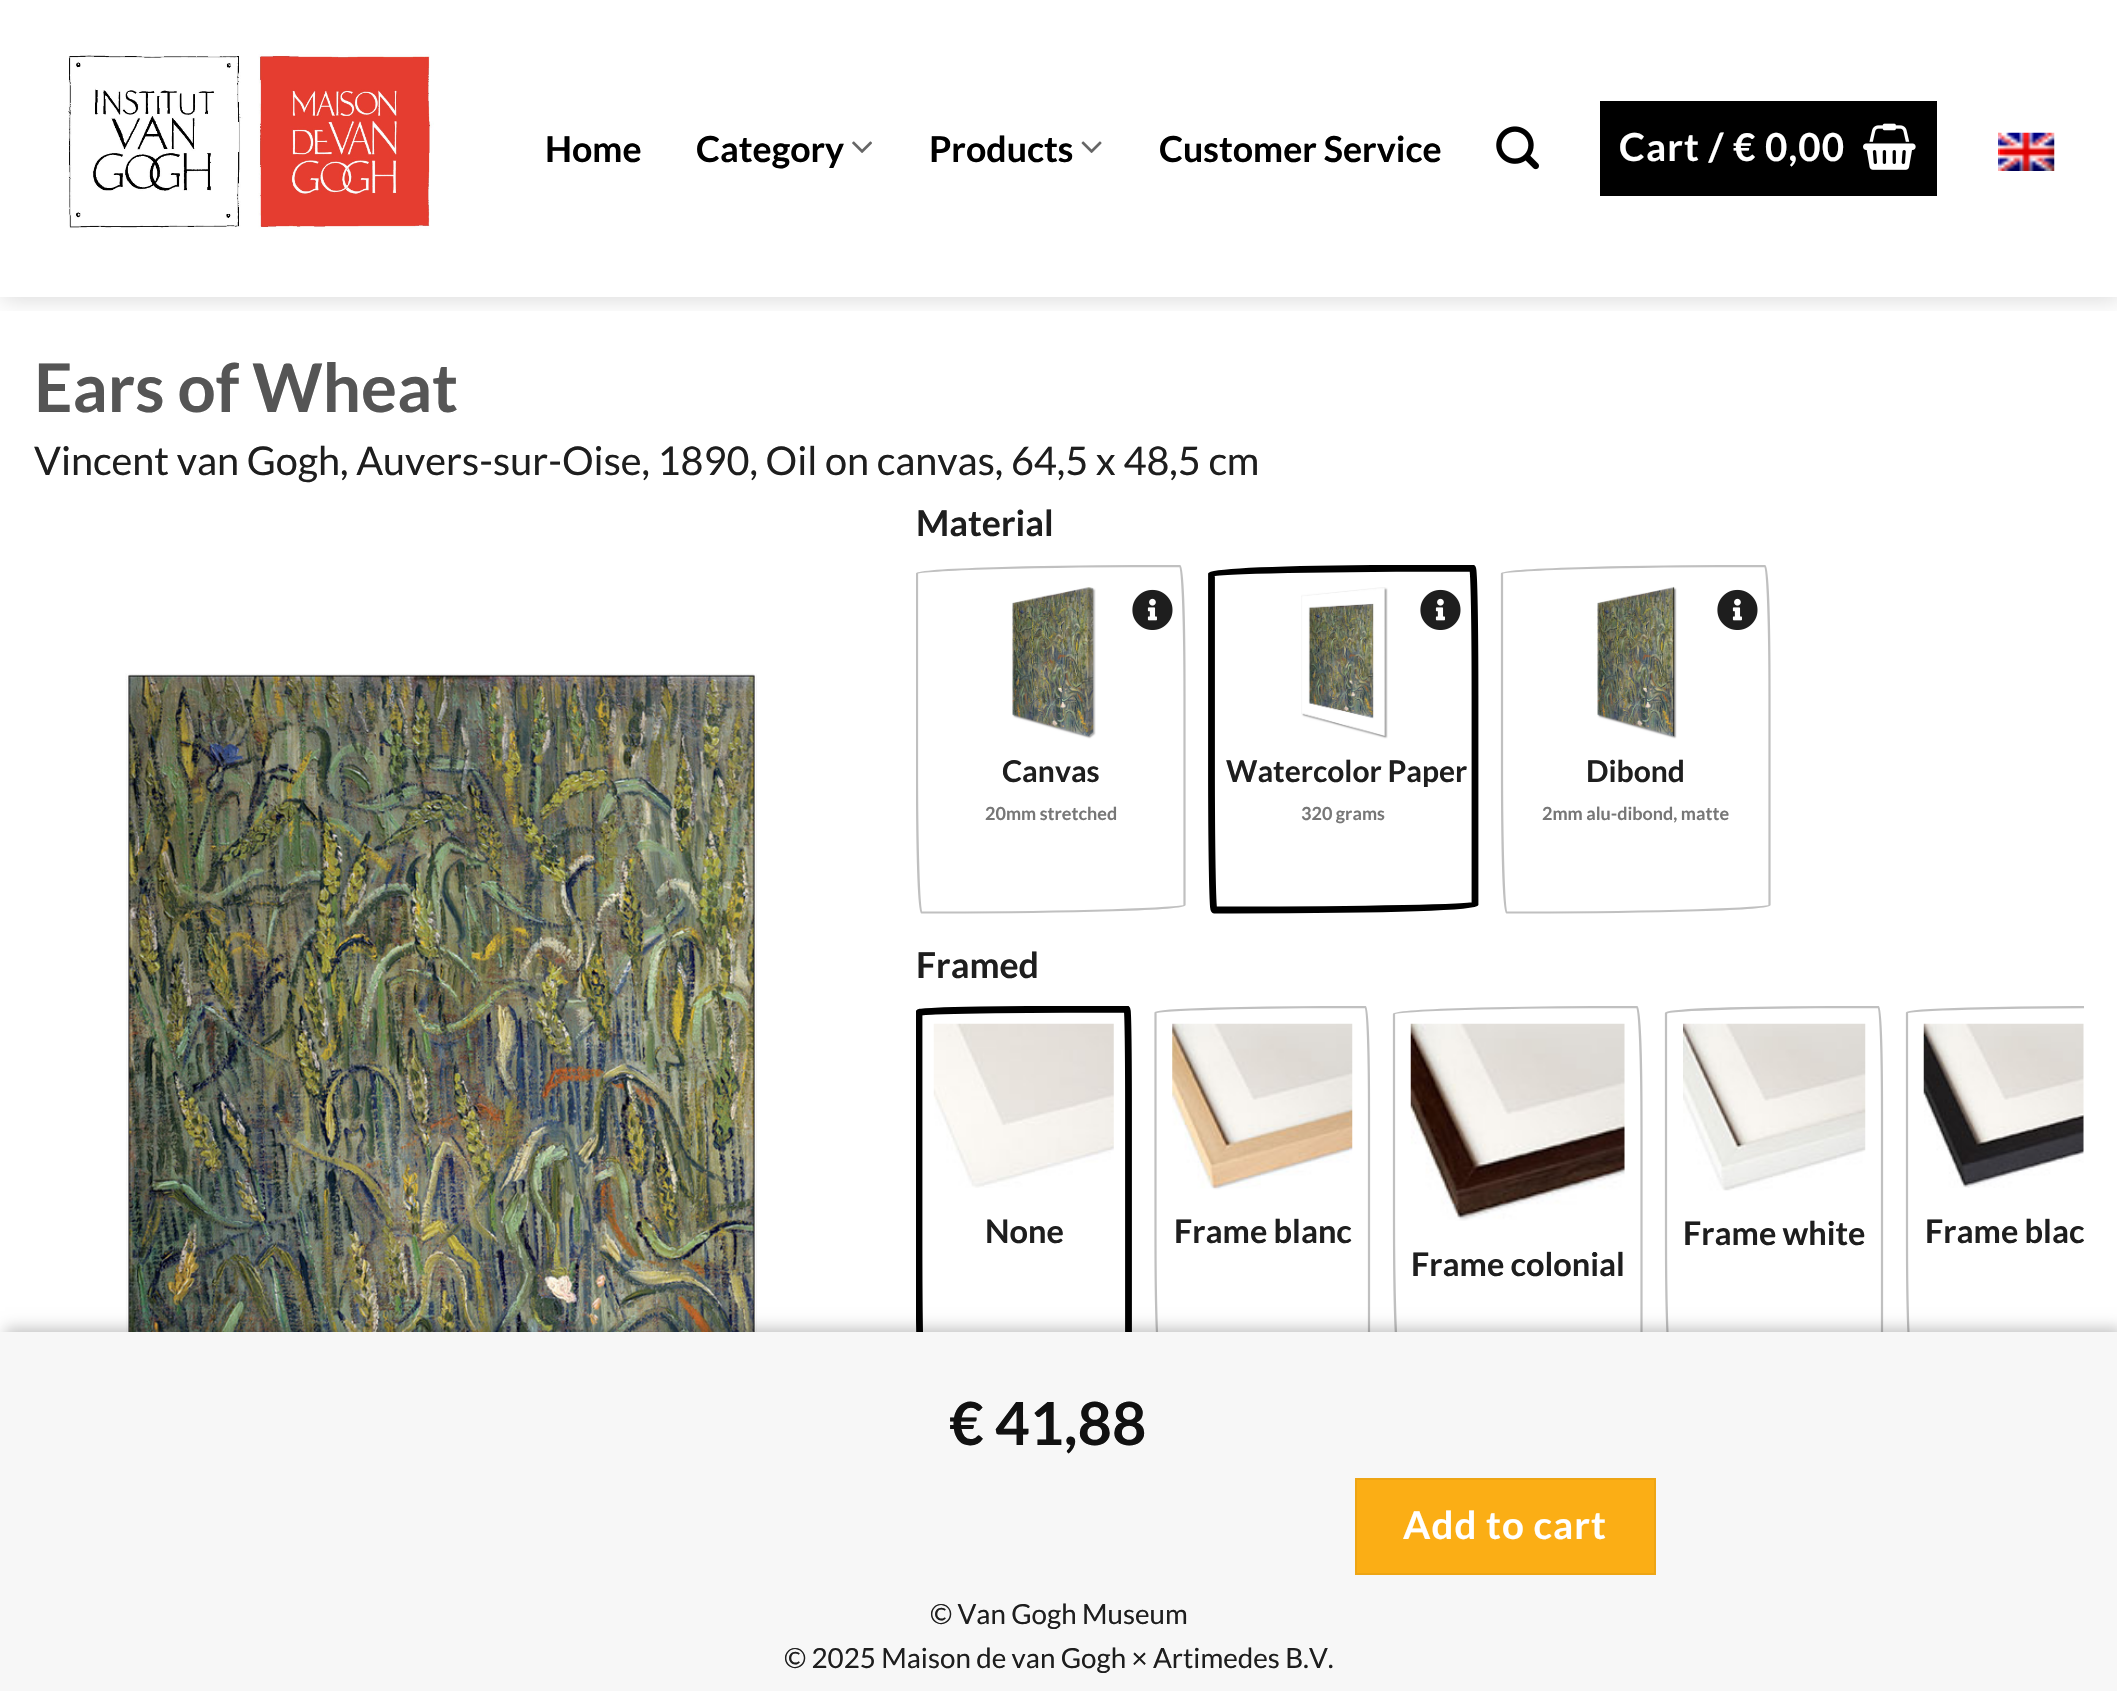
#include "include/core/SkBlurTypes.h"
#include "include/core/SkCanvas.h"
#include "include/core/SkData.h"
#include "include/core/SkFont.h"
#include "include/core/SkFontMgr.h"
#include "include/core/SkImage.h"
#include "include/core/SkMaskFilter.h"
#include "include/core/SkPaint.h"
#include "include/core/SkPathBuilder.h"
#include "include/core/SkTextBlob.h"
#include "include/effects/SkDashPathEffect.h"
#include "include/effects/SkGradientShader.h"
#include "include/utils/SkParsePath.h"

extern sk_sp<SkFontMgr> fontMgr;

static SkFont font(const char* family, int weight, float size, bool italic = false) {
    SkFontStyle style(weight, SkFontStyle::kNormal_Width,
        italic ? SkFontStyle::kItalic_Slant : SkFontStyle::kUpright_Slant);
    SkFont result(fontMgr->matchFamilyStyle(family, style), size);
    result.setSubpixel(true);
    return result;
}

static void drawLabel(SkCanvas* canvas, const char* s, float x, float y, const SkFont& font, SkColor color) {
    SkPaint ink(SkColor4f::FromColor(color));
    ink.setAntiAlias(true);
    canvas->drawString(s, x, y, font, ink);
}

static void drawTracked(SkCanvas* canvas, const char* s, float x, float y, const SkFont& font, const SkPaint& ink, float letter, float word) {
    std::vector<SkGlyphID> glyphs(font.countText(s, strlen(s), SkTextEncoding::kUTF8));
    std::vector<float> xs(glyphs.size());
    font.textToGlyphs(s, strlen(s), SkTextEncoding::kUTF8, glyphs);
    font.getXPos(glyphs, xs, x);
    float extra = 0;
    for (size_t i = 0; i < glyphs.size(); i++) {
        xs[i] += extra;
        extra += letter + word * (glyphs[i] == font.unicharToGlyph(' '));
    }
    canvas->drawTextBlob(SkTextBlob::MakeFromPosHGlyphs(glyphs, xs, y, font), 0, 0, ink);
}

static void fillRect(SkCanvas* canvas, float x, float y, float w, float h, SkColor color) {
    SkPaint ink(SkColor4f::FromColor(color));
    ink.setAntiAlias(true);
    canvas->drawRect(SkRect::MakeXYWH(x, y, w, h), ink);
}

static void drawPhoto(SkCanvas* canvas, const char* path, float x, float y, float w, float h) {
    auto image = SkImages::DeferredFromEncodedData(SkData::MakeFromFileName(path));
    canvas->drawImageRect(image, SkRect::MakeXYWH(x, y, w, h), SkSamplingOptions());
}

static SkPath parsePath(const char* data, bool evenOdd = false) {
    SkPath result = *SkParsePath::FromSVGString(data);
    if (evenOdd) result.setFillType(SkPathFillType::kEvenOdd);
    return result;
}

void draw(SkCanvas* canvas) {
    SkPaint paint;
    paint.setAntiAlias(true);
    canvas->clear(0xFFFFFFFF);
    canvas->save();
    canvas->clipRect(SkRect::MakeXYWH(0, 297, 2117, 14));
    paint.setColor(0x26000000);
    paint.setMaskFilter(SkMaskFilter::MakeBlur(kNormal_SkBlurStyle, 11));
    canvas->drawRect(SkRect::MakeXYWH(2, 2, 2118, 297), paint);
    paint.setMaskFilter(nullptr);
    canvas->restore();
    drawPhoto(canvas, "assets/img1.png", 68, 54, 366, 175);
    SkFont font1 = font("Lato", 700, 35.75f);
    drawLabel(canvas, "Home", 545, 162, font1, 0xFF000000);
    drawLabel(canvas, "Category", 696, 162, font1, 0xFF000000);
    drawPhoto(canvas, "assets/img2.png", 852, 141, 20, 12);
    drawLabel(canvas, "Products", 929, 162, font1, 0xFF000000);
    drawPhoto(canvas, "assets/img3.png", 1081, 141, 21, 12);
    drawLabel(canvas, "Customer Service", 1159, 162, font1, 0xFF000000);
    drawPhoto(canvas, "assets/img4.png", 1496, 126, 43, 44);
    fillRect(canvas, 1600, 101, 337, 95, 0xFF000000);
    SkFont font2 = font("Lato", 700, 38.5f);
    paint.setColor(0xFFFFFFFF);
    drawTracked(canvas, "Cart / € 0,00", 1619, 161, font2, paint, 1.1f, 0);
    drawPhoto(canvas, "assets/img5.png", 1863, 123, 53, 47);
    drawPhoto(canvas, "assets/img6.png", 1998, 132, 57, 39);
    fillRect(canvas, 1998, 133, 2, 34, 0x33FFFFFF);
    SkFont font3 = font("Lato", 700, 67.25f);
    drawLabel(canvas, "Ears of Wheat", 34, 412, font3, 0xFF555555);
    SkFont font4 = font("Lato", 400, 39.6f);
    drawLabel(canvas, "Vincent van Gogh, Auvers-sur-Oise, 1890, Oil on canvas, 64,5 x 48,5 cm", 34, 475, font4, 0xFF1E1E1E);
    drawPhoto(canvas, "assets/img7.png", 125, 673, 632, 659);
    drawLabel(canvas, "Material", 916, 536, font1, 0xFF1E1E1E);
    canvas->save();
    canvas->clipRect(SkRect::MakeXYWH(916, 565, 1168, 371));
    paint.setStroke(true);
    paint.setStrokeWidth(2.2f);
    paint.setColor(0xFFC0C0C0);
    canvas->drawPath(parsePath("M1180 566C1182.5 566 1184.5 624 1184.5 695.5V905C1184.5 909 1074.5 912.5 939 912.5H921.5C919 912.5 917 846.5 917 765.5V573.5C917 569.5 1034.5 566 1180 566Z"), paint);
    canvas->restore();
    drawPhoto(canvas, "assets/img8.png", 1132, 589, 41, 41);
    drawPhoto(canvas, "assets/img9.png", 1012, 587, 84, 152);
    SkFont font5 = font("Lato", 700, 30);
    drawLabel(canvas, "Canvas", 1002, 782, font5, 0xFF1E1E1E);
    SkFont font6 = font("Lato", 700, 18);
    drawLabel(canvas, "20mm stretched", 985, 820, font6, 0xFF777777);
    canvas->save();
    canvas->clipRect(SkRect::MakeXYWH(916, 565, 1168, 371));
    paint.setStrokeWidth(6.8f);
    paint.setColor(0xFF000000);
    canvas->drawPath(parsePath("M1472.5 568C1474 568 1475 625 1475 695.5V905C1475 907.5 1366 910 1231.5 910H1214C1212.5 910 1211.5 845.5 1211.5 765.5V573.5C1211.5 570.5 1328.5 568 1472.5 568Z"), paint);
    canvas->restore();
    drawPhoto(canvas, "assets/img8.png", 1420, 589, 41, 41);
    drawPhoto(canvas, "assets/img10.png", 1301, 587, 87, 152);
    drawLabel(canvas, "Watercolor Paper", 1226, 782, font5, 0xFF1E1E1E);
    drawLabel(canvas, "320 grams", 1301, 820, font6, 0xFF777777);
    canvas->save();
    canvas->clipRect(SkRect::MakeXYWH(916, 565, 1168, 371));
    paint.setStrokeWidth(2.2f);
    paint.setColor(0xFFC0C0C0);
    canvas->drawPath(parsePath("M1765 566C1767.5 566 1769.5 624 1769.5 695.5V905C1769.5 909 1659.5 912.5 1524 912.5H1506.5C1504 912.5 1502 846.5 1502 765.5V573.5C1502 569.5 1619.5 566 1765 566Z"), paint);
    canvas->restore();
    drawPhoto(canvas, "assets/img8.png", 1717, 589, 41, 41);
    drawPhoto(canvas, "assets/img11.png", 1597, 586, 80, 153);
    drawLabel(canvas, "Dibond", 1586, 782, font5, 0xFF1E1E1E);
    drawLabel(canvas, "2mm alu-dibond, matte", 1542, 820, font6, 0xFF777777);
    drawLabel(canvas, "Framed", 916, 978, font1, 0xFF1E1E1E);
    canvas->save();
    canvas->clipRect(SkRect::MakeXYWH(916, 1006, 1168, 371));
    paint.setStrokeWidth(6.8f);
    paint.setColor(0xFF000000);
    canvas->drawPath(parsePath("M1127 1009C1128 1009 1128.5 1054.5 1128.5 1110.5V1347.5C1128.5 1349.5 1041.5 1351 934.5 1351H920.5C919.5 1351 919 1299.5 919 1236V1012.5C919 1010.5 1012 1009 1127 1009Z"), paint);
    canvas->restore();
    drawPhoto(canvas, "assets/img12.png", 933, 1023, 181, 165);
    SkFont font7 = font("Lato", 700, 32.5f);
    drawLabel(canvas, "None", 985, 1243, font7, 0xFF1E1E1E);
    canvas->save();
    canvas->clipRect(SkRect::MakeXYWH(916, 1006, 1168, 371));
    paint.setStrokeWidth(2.2f);
    paint.setColor(0xFFC0C0C0);
    canvas->drawPath(parsePath("M1365.5 1007C1367.5 1007 1369 1053 1369 1110.5V1347.5C1369 1351 1281 1353.5 1173 1353.5H1159C1157 1353.5 1155.5 1301 1155.5 1236V1012.5C1155.5 1009.5 1249.5 1007 1365.5 1007Z"), paint);
    canvas->restore();
    drawPhoto(canvas, "assets/img13.png", 1172, 1023, 181, 167);
    drawLabel(canvas, "Frame blanc", 1174, 1243, font7, 0xFF1E1E1E);
    canvas->save();
    canvas->clipRect(SkRect::MakeXYWH(916, 1006, 1168, 371));
    canvas->drawPath(parsePath("M1878.5 1007C1880.5 1007 1882 1053.5 1882 1111.5V1347.5C1882 1350.5 1793.5 1353.5 1684 1353.5H1669.5C1667.5 1353.5 1666 1300.5 1666 1235V1013C1666 1009.5 1761 1007 1878.5 1007Z"), paint);
    canvas->restore();
    drawPhoto(canvas, "assets/img14.png", 1683, 1023, 183, 168);
    drawLabel(canvas, "Frame white", 1683, 1245, font7, 0xFF1E1E1E);
    canvas->save();
    canvas->clipRect(SkRect::MakeXYWH(916, 1006, 1168, 371));
    canvas->drawPath(parsePath("M2117 1007C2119 1007 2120.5 1053 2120.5 1110.5V1347.5C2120.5 1351 2032.5 1353.5 1924.5 1353.5H1910.5C1908.5 1353.5 1907 1301 1907 1236V1012.5C1907 1009.5 2001 1007 2117 1007Z"), paint);
    canvas->restore();
    drawPhoto(canvas, "assets/img15.png", 1923, 1023, 161, 165);
    drawLabel(canvas, "Frame blac", 1925, 1243, font7, 0xFF1E1E1E);
    canvas->save();
    canvas->clipRect(SkRect::MakeXYWH(916, 1006, 1168, 371));
    canvas->drawPath(parsePath("M1637 1007C1639.5 1007 1641.5 1060.5 1641.5 1126.5V1346.5C1641.5 1350.5 1539.5 1353.5 1414 1353.5H1398C1396 1353.5 1394 1292.5 1394 1217.5V1014C1394 1010 1503 1007 1637 1007Z"), paint);
    canvas->restore();
    drawPhoto(canvas, "assets/img16.png", 1410, 1023, 215, 198);
    drawLabel(canvas, "Frame colonial", 1411, 1276, font7, 0xFF1E1E1E);
    paint.setStroke(false);
    paint.setColor(0x3B000000);
    paint.setMaskFilter(SkMaskFilter::MakeBlur(kNormal_SkBlurStyle, 7));
    canvas->drawRect(SkRect::MakeXYWH(5, 1328, 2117, 360), paint);
    paint.setMaskFilter(nullptr);
    fillRect(canvas, 0, 1332, 2117, 359, 0xFFF7F7F7);
    SkFont font8 = font("Lato", 700, 59.5f);
    drawLabel(canvas, "€ 41,88", 949, 1445, font8, 0xFF111111);
    paint.setColor(0xFFFBAE15);
    canvas->drawRect(SkRect::MakeXYWH(1356, 1479, 299, 95), paint);
    paint.setStroke(true);
    paint.setStrokeWidth(2);
    paint.setColor(0xFFEEA514);
    canvas->drawRect(SkRect::MakeXYWH(1356, 1479, 299, 95), paint);
    paint.setStroke(false);
    paint.setColor(0xFFFFFFFF);
    drawTracked(canvas, "Add to cart", 1403, 1539, font2, paint, 1.1f, 0);
    SkFont font9 = font("Lato", 400, 27.75f);
    drawLabel(canvas, "© Van Gogh Museum", 930, 1624, font9, 0xFF1E1E1E);
    drawLabel(canvas, "© 2025 Maison de van Gogh × Artimedes B.V.", 784, 1668, font9, 0xFF1E1E1E);
}
